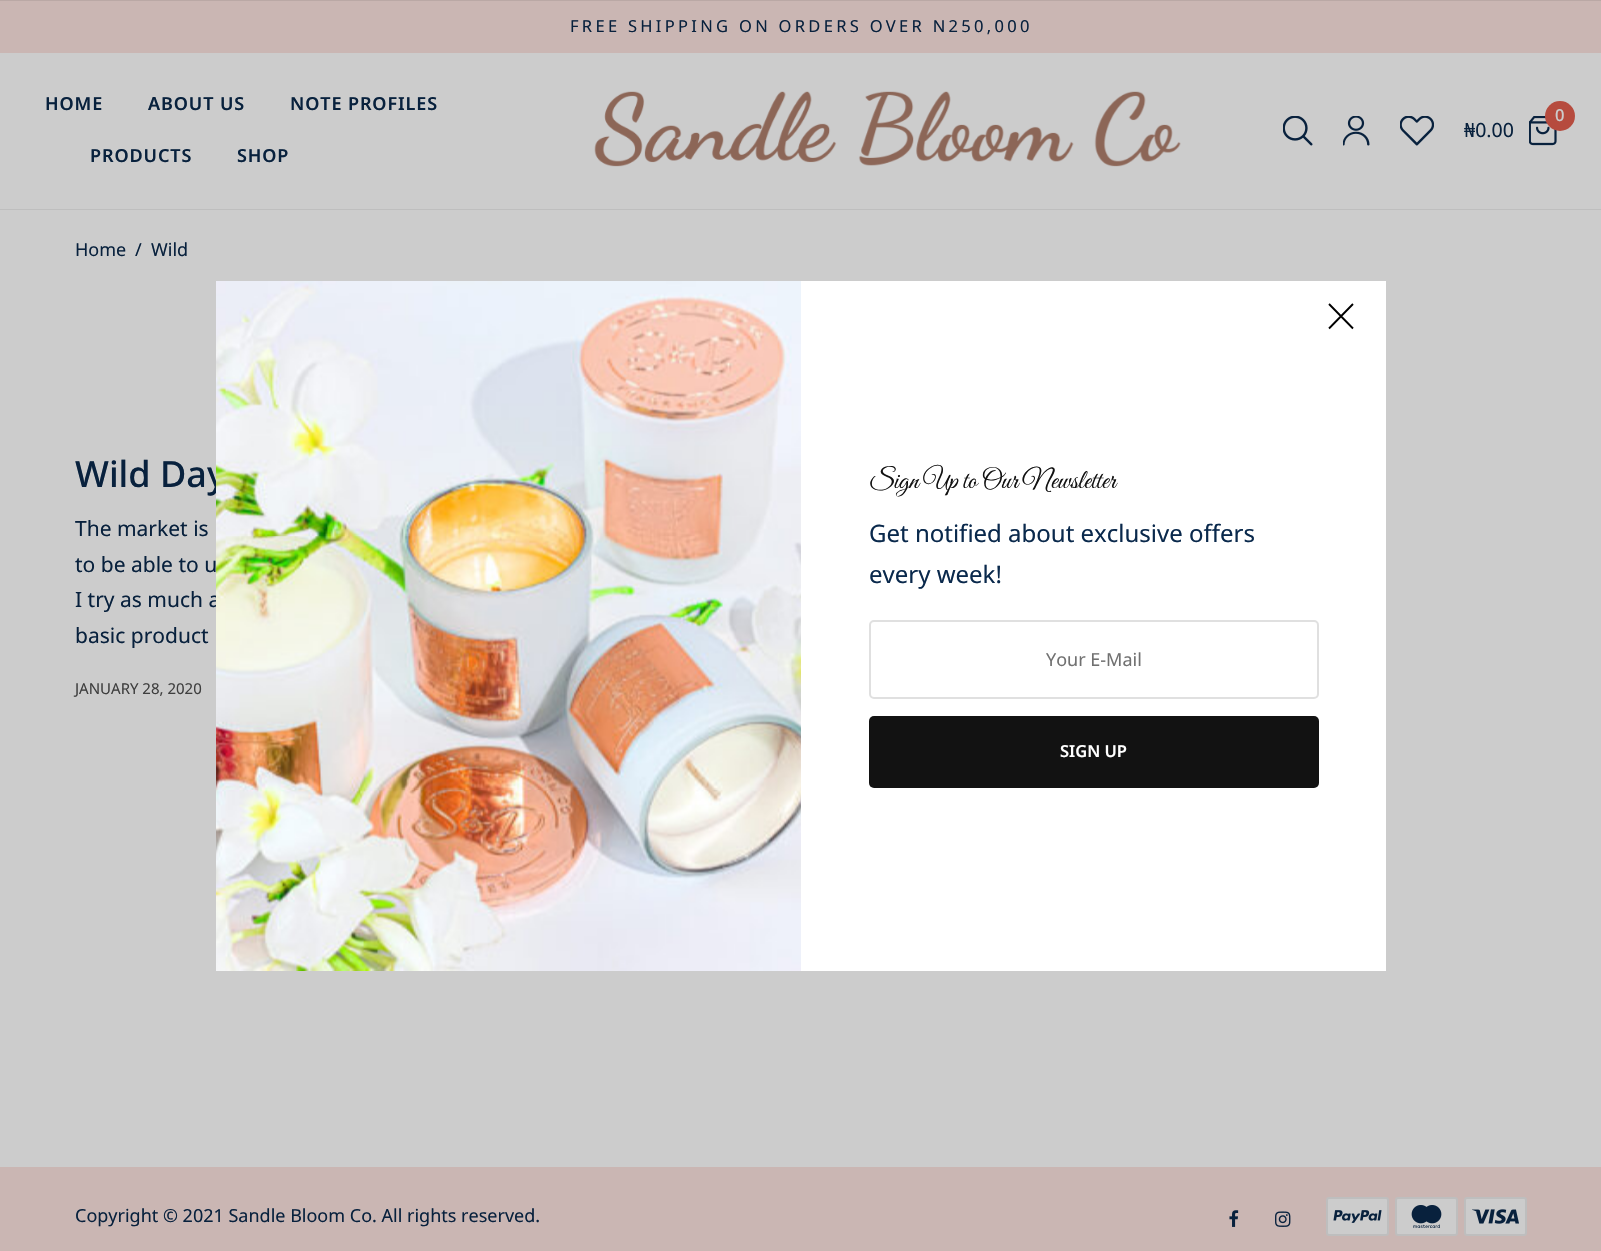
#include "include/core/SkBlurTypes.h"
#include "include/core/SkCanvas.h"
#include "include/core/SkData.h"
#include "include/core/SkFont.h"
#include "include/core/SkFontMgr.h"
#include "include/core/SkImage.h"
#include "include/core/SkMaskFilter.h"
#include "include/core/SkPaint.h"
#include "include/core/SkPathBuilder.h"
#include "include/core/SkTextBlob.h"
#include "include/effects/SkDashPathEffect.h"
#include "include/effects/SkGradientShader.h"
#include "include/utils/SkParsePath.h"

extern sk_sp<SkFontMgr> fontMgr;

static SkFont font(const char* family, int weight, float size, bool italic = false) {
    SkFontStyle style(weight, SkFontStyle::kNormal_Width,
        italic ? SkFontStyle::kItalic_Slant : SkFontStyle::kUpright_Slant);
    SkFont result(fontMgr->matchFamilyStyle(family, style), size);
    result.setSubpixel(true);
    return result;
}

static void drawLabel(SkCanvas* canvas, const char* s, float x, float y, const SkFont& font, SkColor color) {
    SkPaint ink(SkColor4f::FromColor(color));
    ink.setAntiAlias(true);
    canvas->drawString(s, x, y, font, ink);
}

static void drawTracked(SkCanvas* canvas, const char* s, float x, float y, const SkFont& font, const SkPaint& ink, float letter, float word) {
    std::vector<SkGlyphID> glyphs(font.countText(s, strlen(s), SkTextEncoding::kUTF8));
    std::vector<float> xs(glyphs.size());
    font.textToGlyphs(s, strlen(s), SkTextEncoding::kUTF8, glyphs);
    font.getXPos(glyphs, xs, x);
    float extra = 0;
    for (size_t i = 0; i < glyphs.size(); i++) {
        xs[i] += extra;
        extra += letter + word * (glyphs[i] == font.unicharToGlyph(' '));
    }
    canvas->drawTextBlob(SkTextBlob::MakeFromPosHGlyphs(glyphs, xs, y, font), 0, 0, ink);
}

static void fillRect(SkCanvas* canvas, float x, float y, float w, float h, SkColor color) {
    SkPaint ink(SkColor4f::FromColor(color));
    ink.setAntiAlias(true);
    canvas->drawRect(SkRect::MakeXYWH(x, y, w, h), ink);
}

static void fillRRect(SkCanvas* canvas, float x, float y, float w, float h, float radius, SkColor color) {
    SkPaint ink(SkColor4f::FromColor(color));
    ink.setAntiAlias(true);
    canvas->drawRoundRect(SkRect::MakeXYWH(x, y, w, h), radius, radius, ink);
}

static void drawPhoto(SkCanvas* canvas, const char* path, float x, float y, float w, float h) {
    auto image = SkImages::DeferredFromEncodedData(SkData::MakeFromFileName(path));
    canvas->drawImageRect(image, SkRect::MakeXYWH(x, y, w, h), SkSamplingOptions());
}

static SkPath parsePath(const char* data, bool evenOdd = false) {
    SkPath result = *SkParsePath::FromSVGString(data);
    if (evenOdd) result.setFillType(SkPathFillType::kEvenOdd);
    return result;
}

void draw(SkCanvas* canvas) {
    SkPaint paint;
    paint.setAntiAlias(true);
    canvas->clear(0xFFCCCCCC);
    fillRect(canvas, 0, 0, 1601, 1, 0xFFBAA8A5);
    fillRect(canvas, 0, 1, 1601, 52, 0xFFCAB6B3);
    SkFont font1 = font("Noto Sans", 400, 16.5f);
    paint.setColor(0xFF08213D);
    drawTracked(canvas, "FREE SHIPPING ON ORDERS OVER N250,000", 570, 32, font1, paint, 3.3f, 0);
    fillRect(canvas, 0, 209, 1601, 1, 0xFFBEBEBE);
    SkFont font2 = font("Noto Sans", 600, 18);
    drawTracked(canvas, "HOME", 45, 110, font2, paint, 0.9f, 0);
    drawTracked(canvas, "ABOUT US", 148, 110, font2, paint, 0.9f, 0);
    drawTracked(canvas, "NOTE PROFILES", 290, 110, font2, paint, 0.9f, 0);
    drawTracked(canvas, "PRODUCTS", 90, 162, font2, paint, 0.9f, 0);
    drawTracked(canvas, "SHOP", 237, 162, font2, paint, 0.9f, 0);
    drawPhoto(canvas, "assets/img1.png", 594, 91, 587, 76);
    drawPhoto(canvas, "assets/img2.png", 1283, 116, 30, 30);
    drawPhoto(canvas, "assets/img3.png", 1343, 116, 27, 30);
    drawPhoto(canvas, "assets/img4.png", 1400, 116, 34, 30);
    drawPhoto(canvas, "assets/img5.png", 1529, 116, 28, 30);
    paint.setColor(0xFFB64B3E);
    canvas->drawCircle(1560, 116, 15, paint);
    SkFont font3 = font("Noto Sans", 500, 16.5f);
    drawLabel(canvas, "0", 1555, 121, font3, 0xFFCCCCCC);
    SkFont font4 = font("Noto Sans", 400, 19.5f);
    drawLabel(canvas, "₦0.00", 1464, 137, font4, 0xFF08213D);
    SkFont font5 = font("Noto Sans", 400, 18);
    drawLabel(canvas, "Home", 75, 256, font5, 0xFF08213D);
    drawLabel(canvas, "/", 135, 256, font5, 0xFF08213D);
    drawLabel(canvas, "Wild", 151, 256, font5, 0xFF08213D);
    SkFont font6 = font("Noto Sans", 500, 36);
    drawLabel(canvas, "Wild Day", 75, 487, font6, 0xFF08213D);
    SkFont font7 = font("Noto Sans", 400, 21);
    drawLabel(canvas, "The market is", 75, 536, font7, 0xFF08213D);
    drawLabel(canvas, "to be able to u", 75, 572, font7, 0xFF08213D);
    drawLabel(canvas, "I try as much a", 75, 607, font7, 0xFF08213D);
    drawLabel(canvas, "basic product", 75, 643, font7, 0xFF08213D);
    SkFont font8 = font("Noto Sans", 400, 15);
    drawLabel(canvas, "JANUARY 28, 2020", 75, 694, font8, 0xFF3F3F3F);
    fillRect(canvas, 0, 1167, 1601, 84, 0xFFCAB6B3);
    drawLabel(canvas, "Copyright © 2021 Sandle Bloom Co. All rights reserved.", 75, 1222, font5, 0xFF08213D);
    drawPhoto(canvas, "assets/img6.png", 1229, 1210, 10, 17);
    drawPhoto(canvas, "assets/img7.png", 1275, 1211, 16, 16);
    paint.setColor(0xFFCCCCCC);
    canvas->drawRoundRect(SkRect::MakeXYWH(1327, 1198, 61, 37), 2, 2, paint);
    paint.setStroke(true);
    paint.setStrokeWidth(2);
    paint.setColor(0xFFBEBEBE);
    canvas->drawRoundRect(SkRect::MakeXYWH(1327, 1198, 61, 37), 2, 2, paint);
    drawPhoto(canvas, "assets/img8.png", 1333, 1210, 49, 13);
    paint.setStroke(false);
    paint.setColor(0xFFCCCCCC);
    canvas->drawRoundRect(SkRect::MakeXYWH(1396, 1198, 61, 37), 2, 2, paint);
    paint.setStroke(true);
    paint.setColor(0xFFBEBEBE);
    canvas->drawRoundRect(SkRect::MakeXYWH(1396, 1198, 61, 37), 2, 2, paint);
    drawPhoto(canvas, "assets/img9.png", 1411, 1205, 31, 23);
    paint.setStroke(false);
    paint.setColor(0xFFCCCCCC);
    canvas->drawRoundRect(SkRect::MakeXYWH(1465, 1198, 61, 37), 2, 2, paint);
    paint.setStroke(true);
    paint.setColor(0xFFBEBEBE);
    canvas->drawRoundRect(SkRect::MakeXYWH(1465, 1198, 61, 37), 2, 2, paint);
    drawPhoto(canvas, "assets/img10.png", 1472, 1209, 47, 15);
    fillRect(canvas, 801, 281, 585, 690, 0xFFFFFFFF);
    drawPhoto(canvas, "assets/img11.png", 216, 281, 585, 690);
    paint.setStrokeWidth(1.9f);
    paint.setColor(0xFF000000);
    canvas->drawPath(parsePath("M1329 304L1353 328.5M1329 328.5L1353 304"), paint);
    SkFont font9 = font("Great Vibes", 400, 27);
    drawLabel(canvas, "Sign Up to Our Newsletter", 869, 488, font9, 0xFF121212);
    SkFont font10 = font("Noto Sans", 400, 24);
    drawLabel(canvas, "Get notified about exclusive offers", 869, 542, font10, 0xFF0A294C);
    drawLabel(canvas, "every week!", 869, 583, font10, 0xFF0A294C);
    paint.setStrokeWidth(2);
    paint.setColor(0xFFE0E0E0);
    canvas->drawRoundRect(SkRect::MakeXYWH(870, 621, 448, 77), 4, 4, paint);
    drawLabel(canvas, "Your E-Mail", 1046, 666, font5, 0xFF717171);
    fillRRect(canvas, 869, 716, 450, 72, 5, 0xFF121212);
    SkFont font11 = font("Noto Sans", 600, 16.5f);
    drawLabel(canvas, "SIGN UP", 1060, 757, font11, 0xFFFFFFFF);
}
